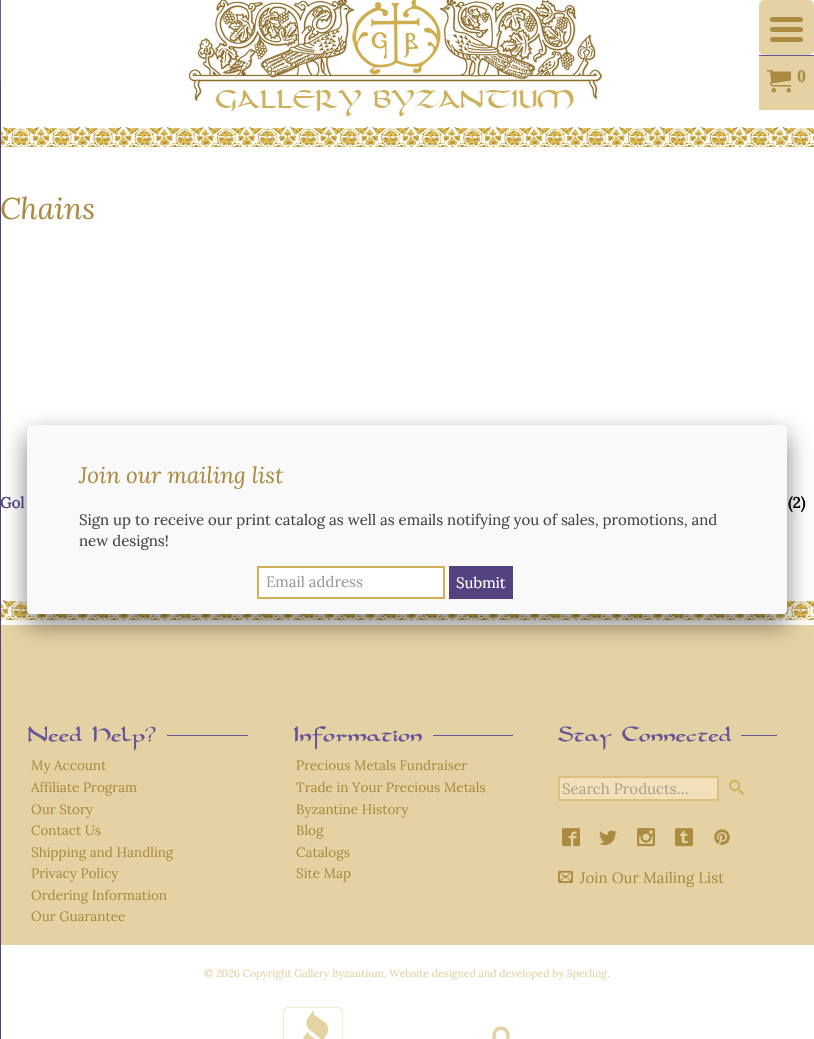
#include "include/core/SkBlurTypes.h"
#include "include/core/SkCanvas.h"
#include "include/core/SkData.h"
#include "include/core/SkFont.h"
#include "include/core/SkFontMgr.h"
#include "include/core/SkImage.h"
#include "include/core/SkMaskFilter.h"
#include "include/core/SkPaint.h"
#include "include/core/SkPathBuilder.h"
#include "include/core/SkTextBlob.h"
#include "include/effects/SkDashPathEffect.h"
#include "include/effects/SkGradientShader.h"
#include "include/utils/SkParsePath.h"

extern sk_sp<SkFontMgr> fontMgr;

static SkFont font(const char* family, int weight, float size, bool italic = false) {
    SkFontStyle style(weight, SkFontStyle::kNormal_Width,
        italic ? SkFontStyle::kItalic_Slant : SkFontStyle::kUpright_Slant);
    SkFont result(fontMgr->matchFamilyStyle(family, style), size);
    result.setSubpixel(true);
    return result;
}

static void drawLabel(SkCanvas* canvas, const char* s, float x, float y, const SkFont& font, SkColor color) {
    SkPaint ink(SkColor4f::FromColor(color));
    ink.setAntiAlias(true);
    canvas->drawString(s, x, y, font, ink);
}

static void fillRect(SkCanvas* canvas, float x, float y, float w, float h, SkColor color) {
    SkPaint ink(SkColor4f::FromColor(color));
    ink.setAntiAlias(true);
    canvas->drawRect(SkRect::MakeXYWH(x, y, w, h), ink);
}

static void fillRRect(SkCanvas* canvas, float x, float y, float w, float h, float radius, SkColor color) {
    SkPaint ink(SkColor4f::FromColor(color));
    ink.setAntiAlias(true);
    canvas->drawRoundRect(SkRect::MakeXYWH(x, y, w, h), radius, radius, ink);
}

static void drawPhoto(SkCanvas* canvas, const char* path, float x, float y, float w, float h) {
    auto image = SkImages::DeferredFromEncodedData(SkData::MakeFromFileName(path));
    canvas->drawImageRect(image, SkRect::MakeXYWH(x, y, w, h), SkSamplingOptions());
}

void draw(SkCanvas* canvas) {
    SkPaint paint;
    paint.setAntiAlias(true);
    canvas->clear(0xFFFFFFFF);
    fillRect(canvas, 1, 625, 813, 320, 0xFFE5D2A4);
    drawPhoto(canvas, "assets/img2.png", 1, 600, 813, 20);
    paint.setColor(0x80000000);
    paint.setMaskFilter(SkMaskFilter::MakeBlur(kNormal_SkBlurStyle, 12.5f));
    canvas->drawRoundRect(SkRect::MakeXYWH(27, 435, 760, 189), 4, 4, paint);
    paint.setMaskFilter(nullptr);
    fillRect(canvas, 0, 81, 1, 958, 0xFF544280);
    fillRect(canvas, 0, 0, 1, 81, 0xFF655599);
    drawPhoto(canvas, "assets/img1.png", 188, 0, 415, 117);
    drawPhoto(canvas, "assets/img2.png", 1, 127, 813, 20);
    fillRRect(canvas, 759, 0, 55, 55, 5, 0xFFE5D2A4);
    fillRRect(canvas, 770, 27, 33, 5, 2.5f, 0xFFAA8B40);
    fillRRect(canvas, 770, 17, 33, 5, 2.5f, 0xFFAA8B40);
    fillRRect(canvas, 770, 37, 33, 5, 2.5f, 0xFFAA8B40);
    fillRect(canvas, 759, 56, 55, 54, 0xFFE5D2A4);
    fillRect(canvas, 759, 55, 55, 1, 0xFF655599);
    drawPhoto(canvas, "assets/img3.png", 767, 70, 24, 23);
    SkFont font1 = font("Liberation Serif", 700, 18);
    drawLabel(canvas, "0", 797, 82, font1, 0xFFAA8B40);
    SkFont font2 = font("Lora", 400, 30, true);
    drawLabel(canvas, "Chains", 0, 219, font2, 0xFFAA8B40);
    SkFont font3 = font("Lora", 700, 15);
    drawLabel(canvas, "Gol", 0, 508, font3, 0xFF544280);
    drawLabel(canvas, "(2)", 788, 508, font3, 0xFF000000);
    fillRRect(canvas, 27, 425, 760, 189, 4, 0xFFF9F9F9);
    SkFont font4 = font("Lora", 400, 22.5f, true);
    drawLabel(canvas, "Join our mailing list", 79, 483, font4, 0xFFAA8B40);
    SkFont font5 = font("Lora", 400, 15);
    drawLabel(canvas, "Sign up to receive our print catalog as well as emails notifying you of sales, promotions, and", 79, 525, font5, 0xFF444444);
    drawLabel(canvas, "new designs!", 79, 546, font5, 0xFF444444);
    paint.setColor(0xFFFFFFFF);
    canvas->drawRect(SkRect::MakeXYWH(258, 567, 186, 31), paint);
    paint.setStroke(true);
    paint.setStrokeWidth(2);
    paint.setColor(0xFFCEB05B);
    canvas->drawRect(SkRect::MakeXYWH(258, 567, 186, 31), paint);
    drawLabel(canvas, "Email address", 266, 587, font5, 0xFF999999);
    fillRect(canvas, 449, 566, 64, 33, 0xFF544280);
    drawLabel(canvas, "Submit", 456, 588, font5, 0xFFFFFFFF);
    fillRect(canvas, 167, 735, 81, 1, 0xFF655599);
    SkFont font6 = font("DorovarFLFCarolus", 500, 25);
    drawLabel(canvas, "Need Help?", 28, 741, font6, 0xFF655599);
    SkFont font7 = font("Lora", 400, 13.5f);
    drawLabel(canvas, "My Account", 31, 770, font7, 0xFFAA8B40);
    drawLabel(canvas, "Affiliate Program", 31, 792, font7, 0xFFAA8B40);
    drawLabel(canvas, "Our Story", 31, 814, font7, 0xFFAA8B40);
    drawLabel(canvas, "Contact Us", 31, 835, font7, 0xFFAA8B40);
    drawLabel(canvas, "Shipping and Handling", 31, 857, font7, 0xFFAA8B40);
    drawLabel(canvas, "Privacy Policy", 31, 878, font7, 0xFFAA8B40);
    drawLabel(canvas, "Ordering Information", 31, 900, font7, 0xFFAA8B40);
    drawLabel(canvas, "Our Guarantee", 31, 921, font7, 0xFFAA8B40);
    fillRect(canvas, 433, 735, 80, 1, 0xFF655599);
    drawLabel(canvas, "Information", 293, 741, font6, 0xFF655599);
    drawLabel(canvas, "Precious Metals Fundraiser", 296, 770, font7, 0xFFAA8B40);
    drawLabel(canvas, "Trade in Your Precious Metals", 296, 792, font7, 0xFFAA8B40);
    drawLabel(canvas, "Byzantine History", 296, 814, font7, 0xFFAA8B40);
    drawLabel(canvas, "Blog", 296, 835, font7, 0xFFAA8B40);
    drawLabel(canvas, "Catalogs", 296, 857, font7, 0xFFAA8B40);
    drawLabel(canvas, "Site Map", 296, 878, font7, 0xFFAA8B40);
    fillRect(canvas, 741, 735, 36, 1, 0xFF655599);
    drawLabel(canvas, "Stay Connected", 558, 741, font6, 0xFF655599);
    paint.setStroke(false);
    paint.setColor(0xFFF1E0BA);
    canvas->drawRect(SkRect::MakeXYWH(559, 777, 159, 23), paint);
    paint.setStroke(true);
    paint.setColor(0xFFDAC180);
    canvas->drawRect(SkRect::MakeXYWH(559, 777, 159, 23), paint);
    drawLabel(canvas, "Search Products…", 562, 794, font5, 0xFFADA48D);
    drawPhoto(canvas, "assets/img4.png", 729, 780, 15, 15);
    drawPhoto(canvas, "assets/img5.png", 562, 828, 18, 19);
    drawPhoto(canvas, "assets/img6.png", 599, 830, 18, 15);
    drawPhoto(canvas, "assets/img7.png", 637, 828, 18, 19);
    drawPhoto(canvas, "assets/img8.png", 675, 828, 18, 19);
    drawPhoto(canvas, "assets/img9.png", 714, 829, 16, 16);
    drawPhoto(canvas, "assets/img10.png", 558, 870, 15, 13);
    drawLabel(canvas, "Join Our Mailing List", 580, 883, font5, 0xFFAA8B40);
    SkFont font8 = font("Lora", 400, 10.5f);
    drawLabel(canvas, "© 2026 Copyright Gallery Byzantium. Website designed and developed by Sperling.", 204, 977, font8, 0xFFE5D2A4);
    drawPhoto(canvas, "assets/img11.png", 283, 1007, 60, 32);
    drawPhoto(canvas, "assets/img12.png", 492, 1026, 18, 13);
}
